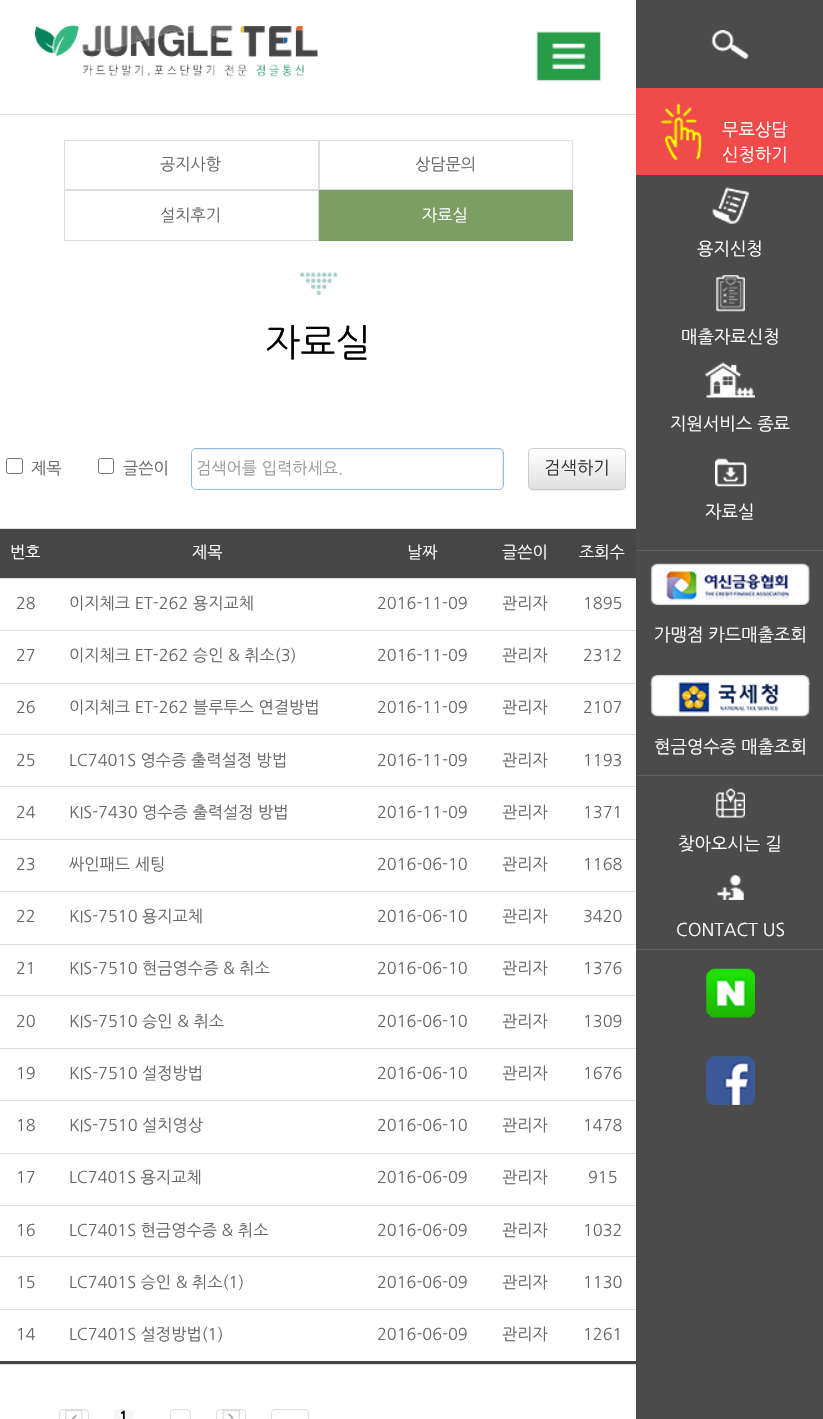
#include "include/core/SkBlurTypes.h"
#include "include/core/SkCanvas.h"
#include "include/core/SkData.h"
#include "include/core/SkFont.h"
#include "include/core/SkFontMgr.h"
#include "include/core/SkImage.h"
#include "include/core/SkMaskFilter.h"
#include "include/core/SkPaint.h"
#include "include/core/SkPathBuilder.h"
#include "include/core/SkTextBlob.h"
#include "include/effects/SkDashPathEffect.h"
#include "include/effects/SkGradientShader.h"
#include "include/utils/SkParsePath.h"

extern sk_sp<SkFontMgr> fontMgr;

static SkFont font(const char* family, int weight, float size, bool italic = false) {
    SkFontStyle style(weight, SkFontStyle::kNormal_Width,
        italic ? SkFontStyle::kItalic_Slant : SkFontStyle::kUpright_Slant);
    SkFont result(fontMgr->matchFamilyStyle(family, style), size);
    result.setSubpixel(true);
    return result;
}

static void drawLabel(SkCanvas* canvas, const char* s, float x, float y, const SkFont& font, SkColor color) {
    SkPaint ink(SkColor4f::FromColor(color));
    ink.setAntiAlias(true);
    canvas->drawString(s, x, y, font, ink);
}

static void fillRect(SkCanvas* canvas, float x, float y, float w, float h, SkColor color) {
    SkPaint ink(SkColor4f::FromColor(color));
    ink.setAntiAlias(true);
    canvas->drawRect(SkRect::MakeXYWH(x, y, w, h), ink);
}

static void fillRRect(SkCanvas* canvas, float x, float y, float w, float h, float radius, SkColor color) {
    SkPaint ink(SkColor4f::FromColor(color));
    ink.setAntiAlias(true);
    canvas->drawRoundRect(SkRect::MakeXYWH(x, y, w, h), radius, radius, ink);
}

static void drawPhoto(SkCanvas* canvas, const char* path, float x, float y, float w, float h) {
    auto image = SkImages::DeferredFromEncodedData(SkData::MakeFromFileName(path));
    canvas->drawImageRect(image, SkRect::MakeXYWH(x, y, w, h), SkSamplingOptions());
}

static SkPath parsePath(const char* data, bool evenOdd = false) {
    SkPath result = *SkParsePath::FromSVGString(data);
    if (evenOdd) result.setFillType(SkPathFillType::kEvenOdd);
    return result;
}

void draw(SkCanvas* canvas) {
    SkPaint paint;
    paint.setAntiAlias(true);
    canvas->clear(0xFFFFFFFF);
    fillRect(canvas, 0, 114, 636, 1, 0xFFDDDDDD);
    drawPhoto(canvas, "assets/img1.png", 35, 25, 283, 52);
    drawPhoto(canvas, "assets/img2.png", 536, 31, 66, 51);
    paint.setStroke(true);
    paint.setStrokeWidth(1);
    paint.setColor(0xFFDDDDDD);
    canvas->drawRect(SkRect::MakeXYWH(64.5f, 140.5f, 254, 49), paint);
    SkFont font1 = font("NanumGothic", 400, 16.25f);
    drawLabel(canvas, "공지사항", 160, 170, font1, 0xFF666666);
    canvas->drawRect(SkRect::MakeXYWH(319.5f, 140.5f, 253, 49), paint);
    drawLabel(canvas, "상담문의", 415, 170, font1, 0xFF666666);
    canvas->drawRect(SkRect::MakeXYWH(64.5f, 190.5f, 254, 50), paint);
    drawLabel(canvas, "설치후기", 160, 221, font1, 0xFF666666);
    fillRect(canvas, 319, 190, 254, 51, 0xFF7C9E65);
    drawLabel(canvas, "자료실", 422, 221, font1, 0xFFFFFFFF);
    drawPhoto(canvas, "assets/img3.png", 300, 272, 38, 23);
    SkFont font2 = font("NanumGothic", 400, 37.5f);
    drawLabel(canvas, "자료실", 265, 356, font2, 0xFF000000);
    paint.setColor(0xFF767676);
    canvas->drawRoundRect(SkRect::MakeXYWH(6.5f, 458.5f, 16, 15), 2, 2, paint);
    drawLabel(canvas, "제목", 31, 474, font1, 0xFF666666);
    canvas->drawRoundRect(SkRect::MakeXYWH(98.5f, 458.5f, 15, 15), 2, 2, paint);
    drawLabel(canvas, "글쓴이", 123, 474, font1, 0xFF666666);
    paint.setStroke(false);
    paint.setColor(0xFFECECEC);
    canvas->drawPath(parsePath("M196 450H499C504 450 502 463 502 465V488C502 487 503 486 503 485V453C503 451 501 449 499 449H197C196 449 194 450 194 451Z"), paint);
    paint.setStroke(true);
    paint.setColor(0xFF96BBE2);
    canvas->drawRoundRect(SkRect::MakeXYWH(191.5f, 448.5f, 312, 41), 4.5f, 4.5f, paint);
    drawLabel(canvas, "검색어를 입력하세요.", 196, 474, font1, 0xFF999999);
    paint.setStroke(false);
    paint.setColor(0x12000000);
    paint.setMaskFilter(SkMaskFilter::MakeBlur(kNormal_SkBlurStyle, 0.5f));
    canvas->drawRoundRect(SkRect::MakeXYWH(528, 449, 98, 42), 5, 5, paint);
    paint.setMaskFilter(nullptr);
    canvas->save();
    canvas->clipPath(parsePath("M533 448H621C624 448 626 450 626 453V485C626 488 624 490 621 490H533C530 490 528 488 528 485V453C528 450 530 448 533 448Z"), true);
    {
        const SkColor colors[] = {0xFFFFFFFF, 0xFFE0E0E0};
        const float stops[] = {0, 1};
        const SkPoint ends[] = {{577, 449}, {577, 489}};
        paint.setShader(SkGradientShader::MakeLinear(ends, colors, stops, 2, SkTileMode::kClamp));
        paint.setAlpha(255);
    }
    canvas->drawRect(SkRect::MakeXYWH(528, 449, 98, 40), paint);
    canvas->restore();
    paint.setStroke(true);
    paint.setShader(nullptr);
    paint.setColor(0xFFCCCCCC);
    canvas->drawRoundRect(SkRect::MakeXYWH(528.5f, 448.5f, 97, 41), 4.5f, 4.5f, paint);
    SkFont font3 = font("NanumGothic", 400, 17.5f);
    drawLabel(canvas, "검색하기", 544, 474, font3, 0xFF333333);
    paint.setColor(0xFFDDDDDD);
    canvas->drawRect(SkRect::MakeXYWH(-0.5f, 528.5f, 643, 836), paint);
    fillRect(canvas, 0, 1361, 641, 3, 0xFF464646);
    fillRect(canvas, 0, 529, 636, 49, 0xFF464646);
    drawLabel(canvas, "번호", 10, 558, font1, 0xFFFFFFFF);
    drawLabel(canvas, "제목", 192, 558, font1, 0xFFFFFFFF);
    drawLabel(canvas, "날짜", 407, 558, font1, 0xFFFFFFFF);
    drawLabel(canvas, "글쓴이", 502, 558, font1, 0xFFFFFFFF);
    drawLabel(canvas, "조회수", 579, 558, font1, 0xFFFFFFFF);
    drawLabel(canvas, "28", 16, 609, font1, 0xFF666666);
    drawLabel(canvas, "이지체크 ET-262 용지교체", 69, 609, font1, 0xFF666666);
    drawLabel(canvas, "2016-11-09", 377, 609, font1, 0xFF666666);
    drawLabel(canvas, "관리자", 502, 609, font1, 0xFF666666);
    fillRect(canvas, 0, 578, 641, 1, 0xFFDDDDDD);
    drawLabel(canvas, "1895", 583, 609, font1, 0xFF666666);
    drawLabel(canvas, "27", 16, 661, font1, 0xFF666666);
    drawLabel(canvas, "이지체크 ET-262 승인 & 취소(3)", 69, 661, font1, 0xFF666666);
    drawLabel(canvas, "2016-11-09", 377, 661, font1, 0xFF666666);
    drawLabel(canvas, "관리자", 502, 661, font1, 0xFF666666);
    fillRect(canvas, 0, 630, 641, 1, 0xFFDDDDDD);
    drawLabel(canvas, "2312", 583, 661, font1, 0xFF666666);
    drawLabel(canvas, "26", 16, 713, font1, 0xFF666666);
    drawLabel(canvas, "이지체크 ET-262 블루투스 연결방법", 69, 713, font1, 0xFF666666);
    drawLabel(canvas, "2016-11-09", 377, 713, font1, 0xFF666666);
    drawLabel(canvas, "관리자", 502, 713, font1, 0xFF666666);
    fillRect(canvas, 0, 683, 641, 1, 0xFFDDDDDD);
    drawLabel(canvas, "2107", 583, 713, font1, 0xFF666666);
    drawLabel(canvas, "25", 16, 766, font1, 0xFF666666);
    drawLabel(canvas, "LC7401S 영수증 출력설정 방법", 69, 766, font1, 0xFF666666);
    drawLabel(canvas, "2016-11-09", 377, 766, font1, 0xFF666666);
    drawLabel(canvas, "관리자", 502, 766, font1, 0xFF666666);
    fillRect(canvas, 0, 734, 641, 1, 0xFFDDDDDD);
    drawLabel(canvas, "1193", 583, 766, font1, 0xFF666666);
    drawLabel(canvas, "24", 16, 818, font1, 0xFF666666);
    drawLabel(canvas, "KIS-7430 영수증 출력설정 방법", 69, 818, font1, 0xFF666666);
    drawLabel(canvas, "2016-11-09", 377, 818, font1, 0xFF666666);
    drawLabel(canvas, "관리자", 502, 818, font1, 0xFF666666);
    fillRect(canvas, 0, 786, 641, 1, 0xFFDDDDDD);
    drawLabel(canvas, "1371", 583, 818, font1, 0xFF666666);
    drawLabel(canvas, "23", 16, 870, font1, 0xFF666666);
    drawLabel(canvas, "싸인패드 세팅", 69, 870, font1, 0xFF666666);
    drawLabel(canvas, "2016-06-10", 377, 870, font1, 0xFF666666);
    drawLabel(canvas, "관리자", 502, 870, font1, 0xFF666666);
    fillRect(canvas, 0, 839, 641, 1, 0xFFDDDDDD);
    drawLabel(canvas, "1168", 583, 870, font1, 0xFF666666);
    drawLabel(canvas, "22", 16, 922, font1, 0xFF666666);
    drawLabel(canvas, "KIS-7510 용지교체", 69, 922, font1, 0xFF666666);
    drawLabel(canvas, "2016-06-10", 377, 922, font1, 0xFF666666);
    drawLabel(canvas, "관리자", 502, 922, font1, 0xFF666666);
    fillRect(canvas, 0, 891, 641, 1, 0xFFDDDDDD);
    drawLabel(canvas, "3420", 583, 922, font1, 0xFF666666);
    drawLabel(canvas, "21", 16, 974, font1, 0xFF666666);
    drawLabel(canvas, "KIS-7510 현금영수증 & 취소", 69, 974, font1, 0xFF666666);
    drawLabel(canvas, "2016-06-10", 377, 974, font1, 0xFF666666);
    drawLabel(canvas, "관리자", 502, 974, font1, 0xFF666666);
    fillRect(canvas, 0, 944, 641, 1, 0xFFDDDDDD);
    drawLabel(canvas, "1376", 583, 974, font1, 0xFF666666);
    drawLabel(canvas, "20", 16, 1027, font1, 0xFF666666);
    drawLabel(canvas, "KIS-7510 승인 & 취소", 69, 1027, font1, 0xFF666666);
    drawLabel(canvas, "2016-06-10", 377, 1027, font1, 0xFF666666);
    drawLabel(canvas, "관리자", 502, 1027, font1, 0xFF666666);
    fillRect(canvas, 0, 995, 641, 1, 0xFFDDDDDD);
    drawLabel(canvas, "1309", 583, 1027, font1, 0xFF666666);
    drawLabel(canvas, "19", 16, 1079, font1, 0xFF666666);
    drawLabel(canvas, "KIS-7510 설정방법", 69, 1079, font1, 0xFF666666);
    drawLabel(canvas, "2016-06-10", 377, 1079, font1, 0xFF666666);
    drawLabel(canvas, "관리자", 502, 1079, font1, 0xFF666666);
    fillRect(canvas, 0, 1048, 641, 1, 0xFFDDDDDD);
    drawLabel(canvas, "1676", 583, 1079, font1, 0xFF666666);
    drawLabel(canvas, "18", 16, 1131, font1, 0xFF666666);
    drawLabel(canvas, "KIS-7510 설치영상", 69, 1131, font1, 0xFF666666);
    drawLabel(canvas, "2016-06-10", 377, 1131, font1, 0xFF666666);
    drawLabel(canvas, "관리자", 502, 1131, font1, 0xFF666666);
    fillRect(canvas, 0, 1100, 641, 1, 0xFFDDDDDD);
    drawLabel(canvas, "1478", 583, 1131, font1, 0xFF666666);
    drawLabel(canvas, "17", 16, 1183, font1, 0xFF666666);
    drawLabel(canvas, "LC7401S 용지교체", 69, 1183, font1, 0xFF666666);
    drawLabel(canvas, "2016-06-09", 377, 1183, font1, 0xFF666666);
    drawLabel(canvas, "관리자", 502, 1183, font1, 0xFF666666);
    fillRect(canvas, 0, 1153, 641, 1, 0xFFDDDDDD);
    drawLabel(canvas, "915", 588, 1183, font1, 0xFF666666);
    drawLabel(canvas, "16", 16, 1236, font1, 0xFF666666);
    drawLabel(canvas, "LC7401S 현금영수증 & 취소", 69, 1236, font1, 0xFF666666);
    drawLabel(canvas, "2016-06-09", 377, 1236, font1, 0xFF666666);
    drawLabel(canvas, "관리자", 502, 1236, font1, 0xFF666666);
    fillRect(canvas, 0, 1205, 641, 1, 0xFFDDDDDD);
    drawLabel(canvas, "1032", 583, 1236, font1, 0xFF666666);
    drawLabel(canvas, "15", 16, 1288, font1, 0xFF666666);
    drawLabel(canvas, "LC7401S 승인 & 취소(1)", 69, 1288, font1, 0xFF666666);
    drawLabel(canvas, "2016-06-09", 377, 1288, font1, 0xFF666666);
    drawLabel(canvas, "관리자", 502, 1288, font1, 0xFF666666);
    fillRect(canvas, 0, 1256, 641, 1, 0xFFDDDDDD);
    drawLabel(canvas, "1130", 583, 1288, font1, 0xFF666666);
    drawLabel(canvas, "14", 16, 1340, font1, 0xFF666666);
    drawLabel(canvas, "LC7401S 설정방법(1)", 69, 1340, font1, 0xFF666666);
    drawLabel(canvas, "2016-06-09", 377, 1340, font1, 0xFF666666);
    drawLabel(canvas, "관리자", 502, 1340, font1, 0xFF666666);
    fillRect(canvas, 0, 1309, 641, 1, 0xFFDDDDDD);
    drawLabel(canvas, "1261", 583, 1340, font1, 0xFF666666);
    canvas->drawRoundRect(SkRect::MakeXYWH(59.5f, 1409.5f, 29, 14), 3.5f, 3.5f, paint);
    drawPhoto(canvas, "assets/img4.png", 65, 1410, 18, 9);
    fillRRect(canvas, 114, 1409, 19, 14, 4, 0xFFF6F6F6);
    SkFont font4 = font("NanumGothic", 700, 15);
    drawLabel(canvas, "1", 119, 1422, font4, 0xFF000000);
    canvas->drawRoundRect(SkRect::MakeXYWH(170.5f, 1409.5f, 20, 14), 3.5f, 3.5f, paint);
    canvas->drawRoundRect(SkRect::MakeXYWH(216.5f, 1409.5f, 29, 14), 3.5f, 3.5f, paint);
    drawPhoto(canvas, "assets/img5.png", 222, 1410, 18, 9);
    canvas->drawRoundRect(SkRect::MakeXYWH(271.5f, 1409.5f, 37, 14), 3.5f, 3.5f, paint);
    fillRect(canvas, 636, 0, 187, 1419, 0xFF4B4B4B);
    drawPhoto(canvas, "assets/img6.png", 711, 30, 38, 29);
    fillRect(canvas, 636, 88, 187, 87, 0xFFF14A4A);
    drawPhoto(canvas, "assets/img7.png", 661, 103, 41, 57);
    drawLabel(canvas, "무료상담", 722, 136, font3, 0xFFFFFFFF);
    drawLabel(canvas, "신청하기", 722, 161, font3, 0xFFFFFFFF);
    drawPhoto(canvas, "assets/img8.png", 712, 187, 37, 37);
    drawLabel(canvas, "용지신청", 697, 255, font3, 0xFFFFFFFF);
    drawPhoto(canvas, "assets/img9.png", 716, 275, 29, 37);
    drawLabel(canvas, "매출자료신청", 681, 343, font3, 0xFFFFFFFF);
    drawPhoto(canvas, "assets/img10.png", 705, 362, 50, 36);
    drawLabel(canvas, "지원서비스 종료", 670, 430, font3, 0xFFFFFFFF);
    drawPhoto(canvas, "assets/img11.png", 715, 458, 32, 29);
    drawLabel(canvas, "자료실", 705, 518, font3, 0xFFFFFFFF);
    drawPhoto(canvas, "assets/img12.png", 650, 563, 160, 42);
    fillRect(canvas, 636, 550, 187, 1, 0xFF655F5F);
    drawLabel(canvas, "가맹점 카드매출조회", 654, 641, font3, 0xFFFFFFFF);
    drawPhoto(canvas, "assets/img13.png", 650, 675, 160, 42);
    drawLabel(canvas, "현금영수증 매출조회", 654, 753, font3, 0xFFFFFFFF);
    drawPhoto(canvas, "assets/img14.png", 716, 788, 29, 30);
    fillRect(canvas, 636, 775, 187, 1, 0xFF655F5F);
    drawLabel(canvas, "찾아오시는 길", 678, 850, font3, 0xFFFFFFFF);
    drawPhoto(canvas, "assets/img15.png", 717, 875, 27, 25);
    fillRect(canvas, 636, 949, 187, 1, 0xFF655F5F);
    drawLabel(canvas, "CONTACT US", 676, 936, font3, 0xFFFFFFFF);
    drawPhoto(canvas, "assets/img16.png", 706, 968, 49, 50);
    drawPhoto(canvas, "assets/img17.png", 706, 1056, 49, 49);
}
